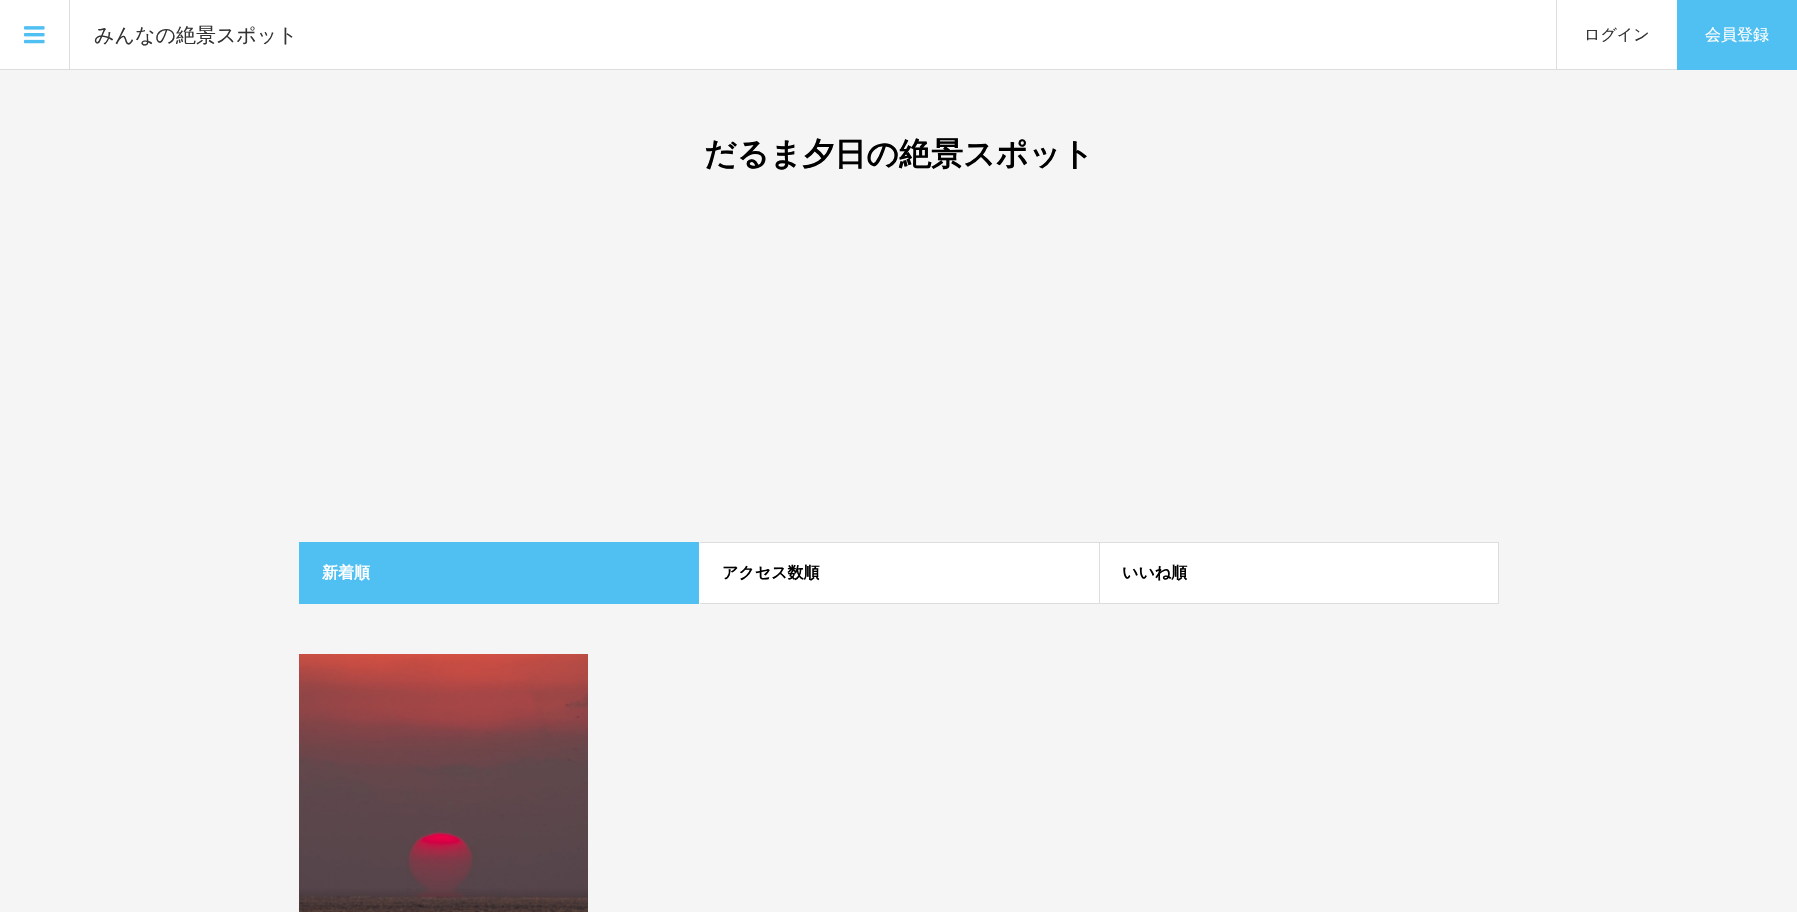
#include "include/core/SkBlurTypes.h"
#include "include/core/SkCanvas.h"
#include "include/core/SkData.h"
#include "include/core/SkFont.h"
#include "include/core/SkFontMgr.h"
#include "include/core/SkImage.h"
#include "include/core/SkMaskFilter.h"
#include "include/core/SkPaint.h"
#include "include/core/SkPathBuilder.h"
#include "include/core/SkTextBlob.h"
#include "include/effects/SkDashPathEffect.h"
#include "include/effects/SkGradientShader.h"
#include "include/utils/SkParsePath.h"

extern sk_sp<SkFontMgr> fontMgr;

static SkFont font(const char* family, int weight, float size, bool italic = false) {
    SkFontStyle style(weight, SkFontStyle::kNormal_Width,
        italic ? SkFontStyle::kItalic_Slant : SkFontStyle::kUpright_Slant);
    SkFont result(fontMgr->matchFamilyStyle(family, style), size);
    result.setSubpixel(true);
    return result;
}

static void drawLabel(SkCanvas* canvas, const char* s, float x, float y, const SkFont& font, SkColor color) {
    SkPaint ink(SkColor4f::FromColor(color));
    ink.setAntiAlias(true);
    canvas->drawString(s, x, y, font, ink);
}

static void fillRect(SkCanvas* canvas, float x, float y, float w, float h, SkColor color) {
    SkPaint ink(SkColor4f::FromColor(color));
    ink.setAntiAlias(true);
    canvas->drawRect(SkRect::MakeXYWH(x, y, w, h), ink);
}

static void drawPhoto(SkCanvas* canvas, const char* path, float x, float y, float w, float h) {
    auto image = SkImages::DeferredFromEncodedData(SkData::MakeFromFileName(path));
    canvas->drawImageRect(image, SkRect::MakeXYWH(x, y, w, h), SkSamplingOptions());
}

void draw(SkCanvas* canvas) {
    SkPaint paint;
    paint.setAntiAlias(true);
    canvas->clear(0xFFFFFFFF);
    fillRect(canvas, 0, 69, 1677, 1, 0xFFDDDDDD);
    fillRect(canvas, 69, 0, 1, 70, 0xFFDDDDDD);
    drawPhoto(canvas, "assets/img1.png", 24, 26, 21, 18);
    SkFont font1 = font("WenQuanYi Zen Hei", 500, 20);
    drawLabel(canvas, "みんなの絶景スポット", 94, 42, font1, 0xFF333333);
    fillRect(canvas, 1556, 0, 1, 70, 0xFFDDDDDD);
    SkFont font2 = font("WenQuanYi Zen Hei", 500, 16);
    drawLabel(canvas, "ログイン", 1584, 40, font2, 0xFF333333);
    fillRect(canvas, 1677, 0, 120, 70, 0xFF50BFF2);
    drawLabel(canvas, "会員登録", 1705, 40, font2, 0xFFFFFFFF);
    fillRect(canvas, 0, 70, 1797, 842, 0xFFF5F5F5);
    SkFont font3 = font("WenQuanYi Zen Hei", 700, 32);
    drawLabel(canvas, "だるま夕日の絶景スポット", 704, 165, font3, 0xFF000000);
    fillRect(canvas, 300, 543, 399, 60, 0xFF50BFF2);
    fillRect(canvas, 299, 542, 400, 1, 0xFF50BFF2);
    fillRect(canvas, 299, 603, 400, 1, 0xFF50BFF2);
    fillRect(canvas, 299, 542, 1, 62, 0xFF50BFF2);
    SkFont font4 = font("WenQuanYi Zen Hei", 700, 16);
    drawLabel(canvas, "新着順", 322, 578, font4, 0xFFFFFFFF);
    fillRect(canvas, 700, 543, 399, 60, 0xFFFFFFFF);
    fillRect(canvas, 699, 542, 400, 1, 0xFFDDDDDD);
    fillRect(canvas, 699, 603, 400, 1, 0xFFDDDDDD);
    fillRect(canvas, 699, 542, 1, 62, 0xFFFFFFFF);
    drawLabel(canvas, "アクセス数順", 722, 578, font4, 0xFF000000);
    paint.setColor(0xFFFFFFFF);
    canvas->drawRect(SkRect::MakeXYWH(1099.5f, 542.5f, 399, 61), paint);
    paint.setStroke(true);
    paint.setStrokeWidth(1);
    paint.setColor(0xFFDDDDDD);
    canvas->drawRect(SkRect::MakeXYWH(1099.5f, 542.5f, 399, 61), paint);
    drawLabel(canvas, "いいね順", 1122, 578, font4, 0xFF000000);
    drawPhoto(canvas, "assets/img2.png", 299, 654, 289, 258);
}
